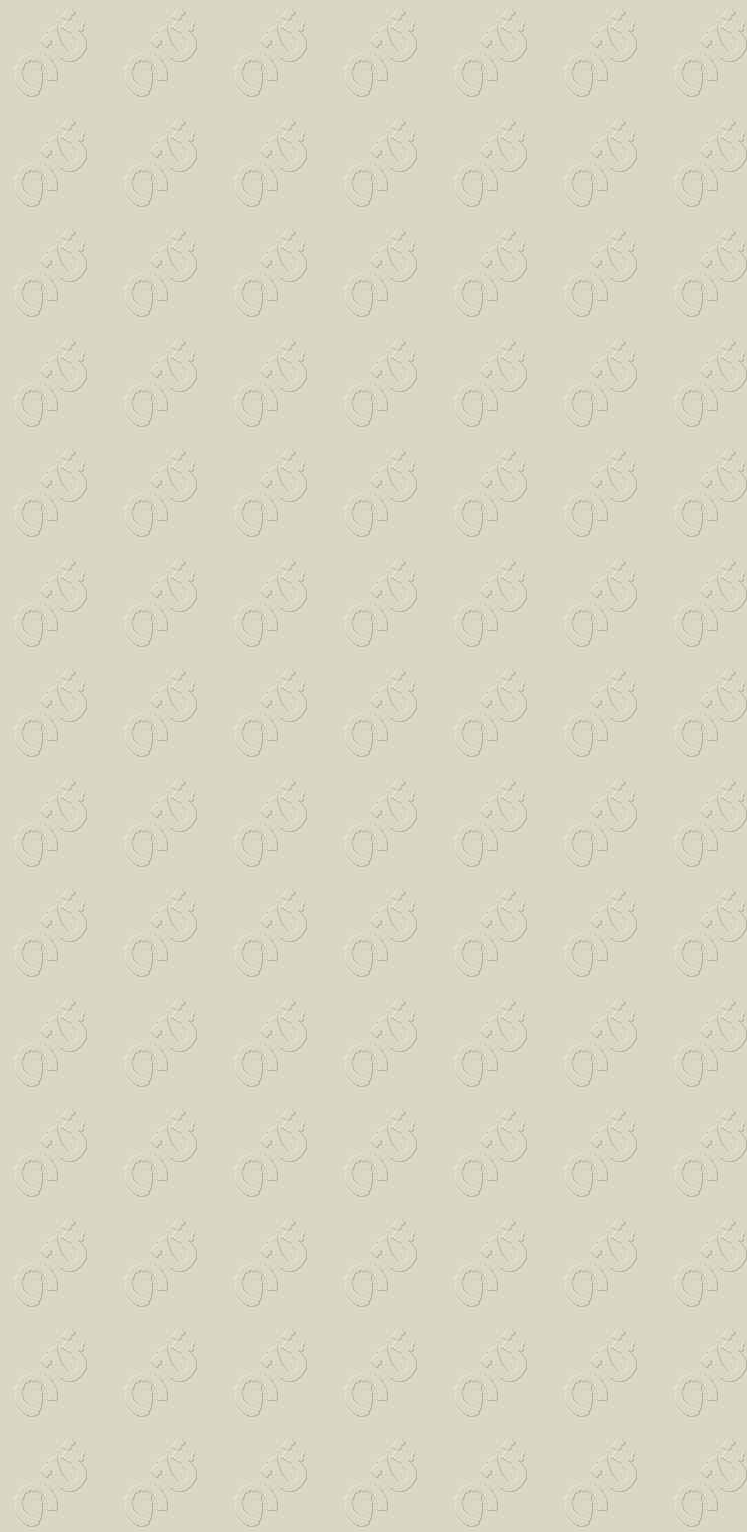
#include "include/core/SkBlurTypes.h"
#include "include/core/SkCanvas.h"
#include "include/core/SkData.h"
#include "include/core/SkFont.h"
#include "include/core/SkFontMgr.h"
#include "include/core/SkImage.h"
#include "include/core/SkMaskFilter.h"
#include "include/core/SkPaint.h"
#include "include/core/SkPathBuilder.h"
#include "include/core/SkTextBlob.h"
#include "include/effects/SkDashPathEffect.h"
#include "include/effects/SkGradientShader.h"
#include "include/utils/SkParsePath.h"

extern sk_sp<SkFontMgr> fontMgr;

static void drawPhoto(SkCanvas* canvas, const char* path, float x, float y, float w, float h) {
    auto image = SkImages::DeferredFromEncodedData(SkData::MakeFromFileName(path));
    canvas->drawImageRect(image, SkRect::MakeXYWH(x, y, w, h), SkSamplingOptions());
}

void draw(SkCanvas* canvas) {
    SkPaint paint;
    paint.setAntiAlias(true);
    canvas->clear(0xFFFFFFFF);
    drawPhoto(canvas, "assets/img1.png", 0, 0, 747, 1532);
}
